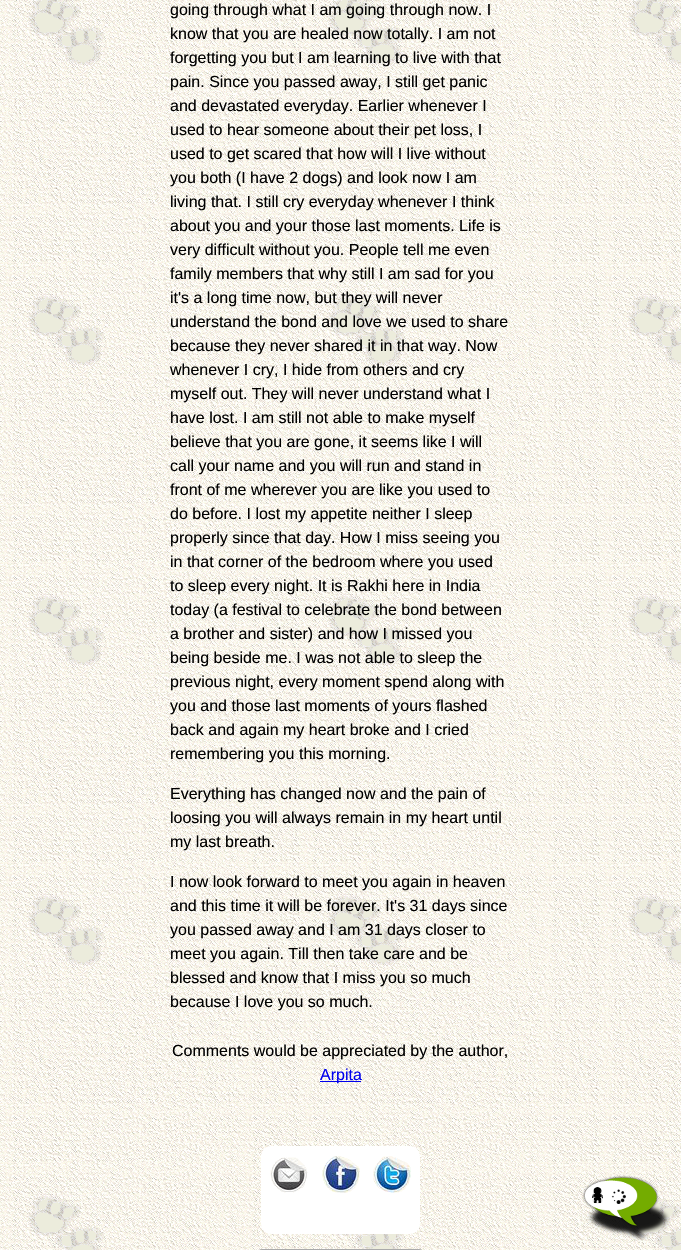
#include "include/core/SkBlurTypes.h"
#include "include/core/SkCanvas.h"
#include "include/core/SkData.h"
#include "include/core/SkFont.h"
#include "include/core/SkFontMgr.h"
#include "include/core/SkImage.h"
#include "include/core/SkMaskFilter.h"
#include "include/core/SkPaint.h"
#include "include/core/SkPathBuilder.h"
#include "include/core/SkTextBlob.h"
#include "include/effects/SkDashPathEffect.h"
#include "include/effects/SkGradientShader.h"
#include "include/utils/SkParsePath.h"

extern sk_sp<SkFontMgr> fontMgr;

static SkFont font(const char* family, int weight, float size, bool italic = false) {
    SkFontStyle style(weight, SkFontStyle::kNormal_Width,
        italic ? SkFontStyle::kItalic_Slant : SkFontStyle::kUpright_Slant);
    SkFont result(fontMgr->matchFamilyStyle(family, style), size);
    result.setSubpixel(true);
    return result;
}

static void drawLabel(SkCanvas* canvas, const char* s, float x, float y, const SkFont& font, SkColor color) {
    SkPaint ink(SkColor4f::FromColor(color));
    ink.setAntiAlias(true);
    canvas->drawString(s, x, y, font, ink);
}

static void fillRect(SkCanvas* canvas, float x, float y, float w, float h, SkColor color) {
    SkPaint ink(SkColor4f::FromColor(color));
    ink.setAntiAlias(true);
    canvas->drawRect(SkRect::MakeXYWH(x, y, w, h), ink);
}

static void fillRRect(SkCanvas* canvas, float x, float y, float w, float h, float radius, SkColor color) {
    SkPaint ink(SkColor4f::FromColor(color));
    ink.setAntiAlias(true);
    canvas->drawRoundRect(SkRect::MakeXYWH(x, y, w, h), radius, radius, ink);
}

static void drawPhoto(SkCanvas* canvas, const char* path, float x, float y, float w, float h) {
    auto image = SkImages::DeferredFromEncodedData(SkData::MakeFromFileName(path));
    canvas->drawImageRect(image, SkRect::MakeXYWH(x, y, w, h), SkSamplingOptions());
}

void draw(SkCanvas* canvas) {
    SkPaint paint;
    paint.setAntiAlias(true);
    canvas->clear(0xFFFFFFFF);
    drawPhoto(canvas, "assets/img1.png", 0, 0, 681, 1250);
    SkFont font1 = font("Liberation Sans", 400, 16);
    drawLabel(canvas, "going through what I am going through now. I", 170, 15, font1, 0xFF000000);
    drawLabel(canvas, "know that you are healed now totally. I am not", 170, 39, font1, 0xFF000000);
    drawLabel(canvas, "forgetting you but I am learning to live with that", 170, 63, font1, 0xFF000000);
    drawLabel(canvas, "pain. Since you passed away, I still get panic", 170, 87, font1, 0xFF000000);
    drawLabel(canvas, "and devastated everyday. Earlier whenever I", 170, 111, font1, 0xFF000000);
    drawLabel(canvas, "used to hear someone about their pet loss, I", 170, 135, font1, 0xFF000000);
    drawLabel(canvas, "used to get scared that how will I live without", 170, 159, font1, 0xFF000000);
    drawLabel(canvas, "you both (I have 2 dogs) and look now I am", 170, 183, font1, 0xFF000000);
    drawLabel(canvas, "living that. I still cry everyday whenever I think", 170, 207, font1, 0xFF000000);
    drawLabel(canvas, "about you and your those last moments. Life is", 170, 231, font1, 0xFF000000);
    drawLabel(canvas, "very difficult without you. People tell me even", 170, 255, font1, 0xFF000000);
    drawLabel(canvas, "family members that why still I am sad for you", 170, 279, font1, 0xFF000000);
    drawLabel(canvas, "it's a long time now, but they will never", 170, 303, font1, 0xFF000000);
    drawLabel(canvas, "understand the bond and love we used to share", 170, 327, font1, 0xFF000000);
    drawLabel(canvas, "because they never shared it in that way. Now", 170, 351, font1, 0xFF000000);
    drawLabel(canvas, "whenever I cry, I hide from others and cry", 170, 375, font1, 0xFF000000);
    drawLabel(canvas, "myself out. They will never understand what I", 170, 399, font1, 0xFF000000);
    drawLabel(canvas, "have lost. I am still not able to make myself", 170, 423, font1, 0xFF000000);
    drawLabel(canvas, "believe that you are gone, it seems like I will", 170, 447, font1, 0xFF000000);
    drawLabel(canvas, "call your name and you will run and stand in", 170, 471, font1, 0xFF000000);
    drawLabel(canvas, "front of me wherever you are like you used to", 170, 495, font1, 0xFF000000);
    drawLabel(canvas, "do before. I lost my appetite neither I sleep", 170, 519, font1, 0xFF000000);
    drawLabel(canvas, "properly since that day. How I miss seeing you", 170, 543, font1, 0xFF000000);
    drawLabel(canvas, "in that corner of the bedroom where you used", 170, 567, font1, 0xFF000000);
    drawLabel(canvas, "to sleep every night. It is Rakhi here in India", 170, 591, font1, 0xFF000000);
    drawLabel(canvas, "today (a festival to celebrate the bond between", 170, 615, font1, 0xFF000000);
    drawLabel(canvas, "a brother and sister) and how I missed you", 170, 639, font1, 0xFF000000);
    drawLabel(canvas, "being beside me. I was not able to sleep the", 170, 663, font1, 0xFF000000);
    drawLabel(canvas, "previous night, every moment spend along with", 170, 687, font1, 0xFF000000);
    drawLabel(canvas, "you and those last moments of yours flashed", 170, 711, font1, 0xFF000000);
    drawLabel(canvas, "back and again my heart broke and I cried", 170, 735, font1, 0xFF000000);
    drawLabel(canvas, "remembering you this morning.", 170, 759, font1, 0xFF000000);
    drawLabel(canvas, "Everything has changed now and the pain of", 170, 799, font1, 0xFF000000);
    drawLabel(canvas, "loosing you will always remain in my heart until", 170, 823, font1, 0xFF000000);
    drawLabel(canvas, "my last breath.", 170, 847, font1, 0xFF000000);
    drawLabel(canvas, "I now look forward to meet you again in heaven", 170, 887, font1, 0xFF000000);
    drawLabel(canvas, "and this time it will be forever. It's 31 days since", 170, 911, font1, 0xFF000000);
    drawLabel(canvas, "you passed away and I am 31 days closer to", 170, 935, font1, 0xFF000000);
    drawLabel(canvas, "meet you again. Till then take care and be", 170, 959, font1, 0xFF000000);
    drawLabel(canvas, "blessed and know that I miss you so much", 170, 983, font1, 0xFF000000);
    drawLabel(canvas, "because I love you so much.", 170, 1007, font1, 0xFF000000);
    drawLabel(canvas, "Comments would be appreciated by the author,", 172, 1056, font1, 0xFF000000);
    fillRect(canvas, 320, 1081, 41, 1, 0xFF0000EE);
    drawLabel(canvas, "Arpita", 320, 1080, font1, 0xFF0000EE);
    fillRRect(canvas, 261, 1146, 159, 88, 10, 0xFFFFFFFF);
    drawPhoto(canvas, "assets/img2.png", 270, 1157, 38, 36);
    drawPhoto(canvas, "assets/img3.png", 322, 1156, 38, 37);
    drawPhoto(canvas, "assets/img4.png", 373, 1156, 38, 37);
    paint.setStroke(true);
    paint.setStrokeWidth(1);
    paint.setColor(0xFFAAAAAA);
    canvas->drawRoundRect(SkRect::MakeXYWH(256.5f, 1249.5f, 168, 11), 9.5f, 9.5f, paint);
    drawPhoto(canvas, "assets/img5.png", 582, 1175, 88, 66);
    drawPhoto(canvas, "assets/img6.png", 611, 1189, 15, 15);
}
